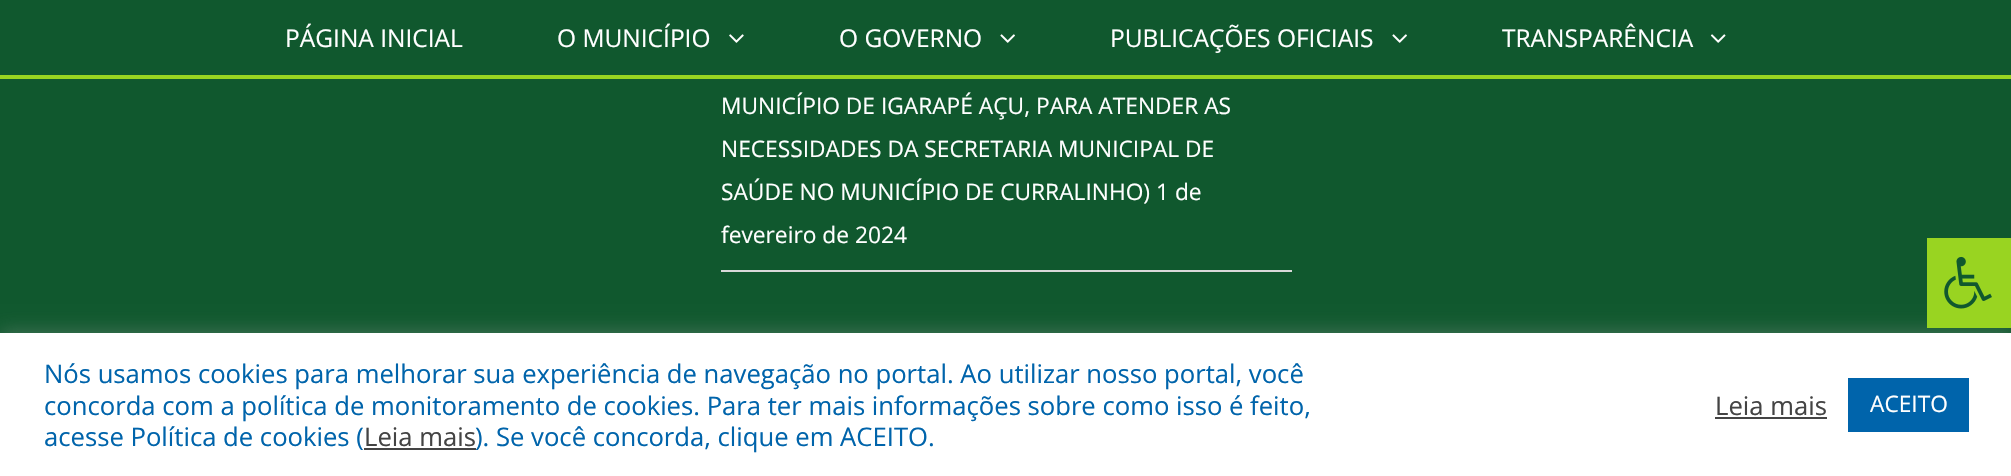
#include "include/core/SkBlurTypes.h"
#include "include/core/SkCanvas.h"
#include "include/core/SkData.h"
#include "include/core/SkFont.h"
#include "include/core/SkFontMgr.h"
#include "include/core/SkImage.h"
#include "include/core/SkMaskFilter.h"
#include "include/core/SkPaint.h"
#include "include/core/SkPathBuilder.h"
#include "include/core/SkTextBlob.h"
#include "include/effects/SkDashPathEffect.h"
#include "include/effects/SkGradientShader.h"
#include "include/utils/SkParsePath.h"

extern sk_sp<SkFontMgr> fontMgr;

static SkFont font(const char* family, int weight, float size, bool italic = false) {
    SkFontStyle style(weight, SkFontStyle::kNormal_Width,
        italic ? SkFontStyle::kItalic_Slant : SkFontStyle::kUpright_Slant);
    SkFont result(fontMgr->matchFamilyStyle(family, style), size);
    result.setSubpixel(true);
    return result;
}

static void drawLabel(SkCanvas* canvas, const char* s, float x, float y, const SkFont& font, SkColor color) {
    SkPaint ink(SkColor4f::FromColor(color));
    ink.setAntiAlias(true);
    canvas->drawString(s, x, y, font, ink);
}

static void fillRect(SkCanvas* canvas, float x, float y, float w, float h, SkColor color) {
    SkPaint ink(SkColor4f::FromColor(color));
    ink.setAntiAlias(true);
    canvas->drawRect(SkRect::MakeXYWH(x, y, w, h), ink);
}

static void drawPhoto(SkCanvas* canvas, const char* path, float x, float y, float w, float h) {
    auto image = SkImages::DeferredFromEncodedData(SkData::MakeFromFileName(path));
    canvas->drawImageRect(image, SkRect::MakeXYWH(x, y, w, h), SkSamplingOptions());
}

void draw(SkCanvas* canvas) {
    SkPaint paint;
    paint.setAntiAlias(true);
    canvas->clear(0xFF10582E);
    fillRect(canvas, 0, 75, 2011, 4, 0xFF99D421);
    SkFont font1 = font("Open Sans", 400, 24.5f);
    drawLabel(canvas, "PÁGINA INICIAL", 285, 47, font1, 0xFFFFFFFF);
    drawLabel(canvas, "O MUNICÍPIO", 557, 47, font1, 0xFFFFFFFF);
    drawPhoto(canvas, "assets/img1.png", 729, 34, 15, 9);
    drawLabel(canvas, "O GOVERNO", 839, 47, font1, 0xFFFFFFFF);
    drawPhoto(canvas, "assets/img2.png", 1000, 34, 15, 9);
    drawLabel(canvas, "PUBLICAÇÕES OFICIAIS", 1110, 47, font1, 0xFFFFFFFF);
    drawPhoto(canvas, "assets/img2.png", 1392, 34, 15, 9);
    drawLabel(canvas, "TRANSPARÊNCIA", 1502, 47, font1, 0xFFFFFFFF);
    drawPhoto(canvas, "assets/img3.png", 1710, 34, 16, 9);
    fillRect(canvas, 721, 270, 571, 2, 0xFFD9D9D9);
    SkFont font2 = font("Open Sans", 400, 22.75f);
    drawLabel(canvas, "MUNICÍPIO DE IGARAPÉ AÇU, PARA ATENDER AS", 721, 114, font2, 0xFFFFFFFF);
    drawLabel(canvas, "NECESSIDADES DA SECRETARIA MUNICIPAL DE", 721, 157, font2, 0xFFFFFFFF);
    drawLabel(canvas, "SAÚDE NO MUNICÍPIO DE CURRALINHO) 1 de", 721, 200, font2, 0xFFFFFFFF);
    drawLabel(canvas, "fevereiro de 2024", 721, 243, font2, 0xFFFFFFFF);
    paint.setColor(0x4DACABAB);
    paint.setMaskFilter(SkMaskFilter::MakeBlur(kNormal_SkBlurStyle, 9));
    canvas->drawRect(SkRect::MakeXYWH(0, 331, 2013, 143), paint);
    paint.setMaskFilter(nullptr);
    fillRect(canvas, 1927, 238, 84, 90, 0xFF99D421);
    drawPhoto(canvas, "assets/img4.png", 1944, 256, 48, 53);
    fillRect(canvas, 0, 333, 2011, 143, 0xFFFFFFFF);
    SkFont font3 = font("Open Sans", 400, 25.65f);
    drawLabel(canvas, "Nós usamos cookies para melhorar sua experiência de navegação no portal. Ao utilizar nosso portal, você", 44, 383, font3, 0xFF0064AB);
    drawLabel(canvas, "concorda com a política de monitoramento de cookies. Para ter mais informações sobre como isso é feito,", 44, 415, font3, 0xFF0064AB);
    drawLabel(canvas, "acesse Política de cookies (", 44, 446, font3, 0xFF0064AB);
    drawLabel(canvas, "Leia mais", 364, 446, font3, 0xFF444444);
    fillRect(canvas, 364, 448, 112, 2, 0xFF444444);
    drawLabel(canvas, "). Se você concorda, clique em ACEITO.", 475, 446, font3, 0xFF0064AB);
    drawLabel(canvas, "Leia mais", 1715, 415, font3, 0xFF444444);
    fillRect(canvas, 1715, 417, 112, 2, 0xFF444444);
    fillRect(canvas, 1848, 378, 121, 54, 0xFF0064AB);
    drawLabel(canvas, "ACEITO", 1870, 412, font2, 0xFFFFFFFF);
}
